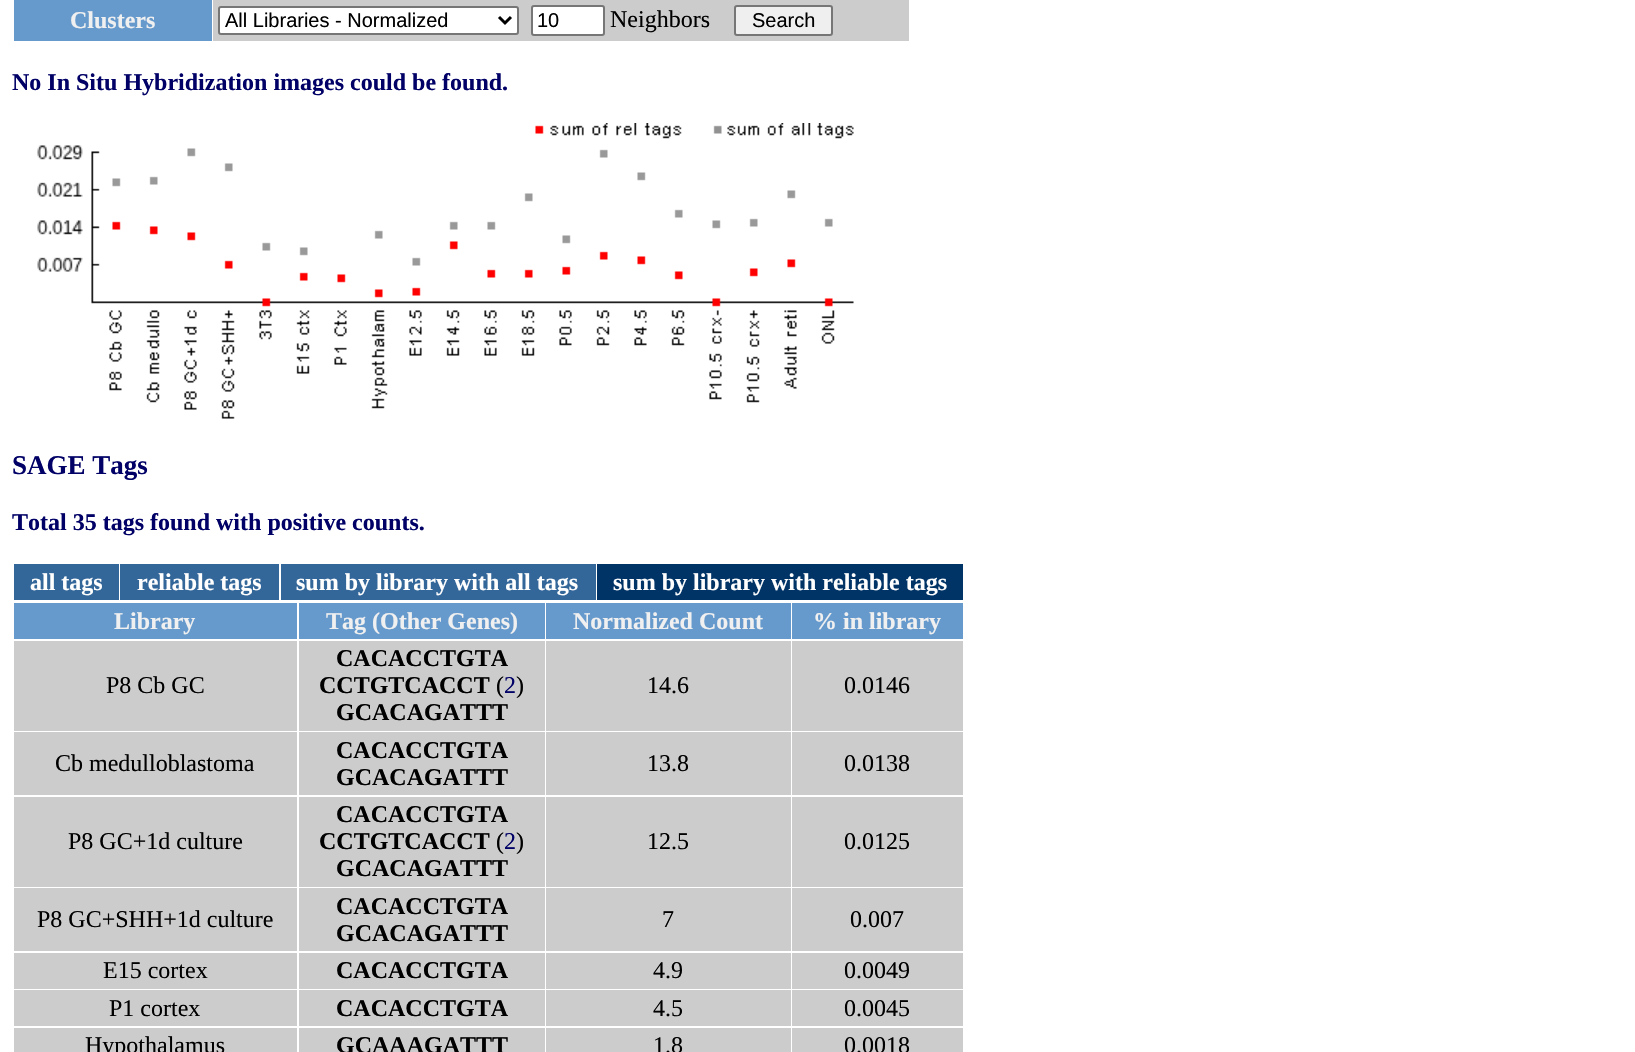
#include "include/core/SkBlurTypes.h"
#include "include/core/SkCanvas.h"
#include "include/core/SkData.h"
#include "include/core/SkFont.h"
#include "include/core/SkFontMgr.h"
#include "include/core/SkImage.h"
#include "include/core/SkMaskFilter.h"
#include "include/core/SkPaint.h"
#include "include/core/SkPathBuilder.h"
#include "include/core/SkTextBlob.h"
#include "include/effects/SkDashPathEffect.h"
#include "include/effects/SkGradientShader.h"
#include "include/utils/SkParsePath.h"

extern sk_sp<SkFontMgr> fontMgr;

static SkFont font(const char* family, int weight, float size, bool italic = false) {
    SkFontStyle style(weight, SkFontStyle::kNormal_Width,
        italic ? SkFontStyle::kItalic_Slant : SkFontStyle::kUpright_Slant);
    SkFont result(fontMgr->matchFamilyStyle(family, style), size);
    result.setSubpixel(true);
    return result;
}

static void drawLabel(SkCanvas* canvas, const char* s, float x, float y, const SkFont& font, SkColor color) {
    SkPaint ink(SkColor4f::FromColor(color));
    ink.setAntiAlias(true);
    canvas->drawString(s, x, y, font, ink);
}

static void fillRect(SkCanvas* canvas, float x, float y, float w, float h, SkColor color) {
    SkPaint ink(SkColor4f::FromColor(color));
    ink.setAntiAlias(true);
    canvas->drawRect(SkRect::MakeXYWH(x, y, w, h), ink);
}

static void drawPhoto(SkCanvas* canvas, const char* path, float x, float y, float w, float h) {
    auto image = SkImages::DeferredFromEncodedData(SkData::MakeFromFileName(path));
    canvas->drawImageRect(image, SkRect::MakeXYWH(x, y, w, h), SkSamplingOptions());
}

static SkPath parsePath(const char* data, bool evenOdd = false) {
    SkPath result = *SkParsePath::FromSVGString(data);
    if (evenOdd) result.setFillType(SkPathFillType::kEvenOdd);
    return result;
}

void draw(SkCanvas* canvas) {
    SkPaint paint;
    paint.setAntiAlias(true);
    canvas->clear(0xFFFFFFFF);
    fillRect(canvas, 14, 0, 198, 41, 0xFF6699CC);
    SkFont font1 = font("Liberation Serif", 700, 24);
    drawLabel(canvas, "Clusters", 70, 28, font1, 0xFFF0F0F0);
    fillRect(canvas, 213, 0, 696, 41, 0xFFCCCCCC);
    paint.setColor(0xFFFFFFFF);
    canvas->drawRoundRect(SkRect::MakeXYWH(219, 7, 299, 27), 2, 2, paint);
    paint.setStroke(true);
    paint.setStrokeWidth(2);
    paint.setColor(0xFF767676);
    canvas->drawRoundRect(SkRect::MakeXYWH(219, 7, 299, 27), 2, 2, paint);
    paint.setStrokeWidth(3);
    paint.setColor(0xFF000000);
    canvas->drawPath(parsePath("M499 17L505 23L511 17"), paint);
    SkFont font2 = font("Liberation Sans", 400, 20);
    drawLabel(canvas, "All Libraries - Normalized", 225, 27, font2, 0xFF000000);
    paint.setStroke(false);
    paint.setColor(0xFFFFFFFF);
    canvas->drawRoundRect(SkRect::MakeXYWH(532, 6, 72, 29), 2, 2, paint);
    paint.setStroke(true);
    paint.setStrokeWidth(2);
    paint.setColor(0xFF767676);
    canvas->drawRoundRect(SkRect::MakeXYWH(532, 6, 72, 29), 2, 2, paint);
    drawLabel(canvas, "10", 537, 27, font2, 0xFF000000);
    SkFont font3 = font("Liberation Serif", 400, 24);
    drawLabel(canvas, "Neighbors", 610, 27, font3, 0xFF000000);
    paint.setStroke(false);
    paint.setColor(0xFFEFEFEF);
    canvas->drawRoundRect(SkRect::MakeXYWH(735, 6, 97, 29), 2, 2, paint);
    paint.setStroke(true);
    paint.setColor(0xFF767676);
    canvas->drawRoundRect(SkRect::MakeXYWH(735, 6, 97, 29), 2, 2, paint);
    drawLabel(canvas, "Search", 752, 27, font2, 0xFF000000);
    drawLabel(canvas, "No In Situ Hybridization images could be found.", 12, 90, font1, 0xFF000066);
    drawPhoto(canvas, "assets/img1.png", 37, 123, 817, 296);
    SkFont font4 = font("Liberation Serif", 700, 27);
    drawLabel(canvas, "SAGE Tags", 12, 474, font4, 0xFF000066);
    drawLabel(canvas, "Total 35 tags found with positive counts.", 12, 530, font1, 0xFF000066);
    fillRect(canvas, 14, 564, 105, 36, 0xFF336699);
    drawLabel(canvas, "all tags", 30, 590, font1, 0xFFFFFFFF);
    fillRect(canvas, 120, 564, 159, 36, 0xFF336699);
    drawLabel(canvas, "reliable tags", 137, 590, font1, 0xFFFFFFFF);
    fillRect(canvas, 281, 564, 315, 36, 0xFF336699);
    drawLabel(canvas, "sum by library with all tags", 296, 590, font1, 0xFFFFFFFF);
    fillRect(canvas, 597, 564, 366, 36, 0xFF003366);
    drawLabel(canvas, "sum by library with reliable tags", 613, 590, font1, 0xFFFFFFFF);
    fillRect(canvas, 14, 603, 283, 36, 0xFF6699CC);
    drawLabel(canvas, "Library", 114, 629, font1, 0xFFF0F0F0);
    fillRect(canvas, 299, 603, 246, 36, 0xFF6699CC);
    drawLabel(canvas, "Tag (Other Genes)", 326, 629, font1, 0xFFF0F0F0);
    fillRect(canvas, 546, 603, 245, 36, 0xFF6699CC);
    drawLabel(canvas, "Normalized Count", 573, 629, font1, 0xFFF0F0F0);
    fillRect(canvas, 792, 603, 171, 36, 0xFF6699CC);
    drawLabel(canvas, "% in library", 813, 629, font1, 0xFFF0F0F0);
    fillRect(canvas, 14, 641, 283, 90, 0xFFCCCCCC);
    drawLabel(canvas, "P8 Cb GC", 106, 693, font3, 0xFF000000);
    fillRect(canvas, 299, 641, 246, 90, 0xFFCCCCCC);
    drawLabel(canvas, "CACACCTGTA", 336, 666, font1, 0xFF000000);
    drawLabel(canvas, "CCTGTCACCT", 319, 693, font1, 0xFF000000);
    drawLabel(canvas, "(", 496, 693, font3, 0xFF000000);
    drawLabel(canvas, "2", 504, 693, font3, 0xFF000066);
    drawLabel(canvas, ")", 516, 693, font3, 0xFF000000);
    drawLabel(canvas, "GCACAGATTT", 336, 720, font1, 0xFF000000);
    fillRect(canvas, 546, 641, 245, 90, 0xFFCCCCCC);
    drawLabel(canvas, "14.6", 647, 693, font3, 0xFF000000);
    fillRect(canvas, 792, 641, 171, 90, 0xFFCCCCCC);
    drawLabel(canvas, "0.0146", 844, 693, font3, 0xFF000000);
    fillRect(canvas, 14, 732, 283, 63, 0xFFCCCCCC);
    drawLabel(canvas, "Cb medulloblastoma", 55, 771, font3, 0xFF000000);
    fillRect(canvas, 299, 732, 246, 63, 0xFFCCCCCC);
    drawLabel(canvas, "CACACCTGTA", 336, 758, font1, 0xFF000000);
    drawLabel(canvas, "GCACAGATTT", 336, 785, font1, 0xFF000000);
    fillRect(canvas, 546, 732, 245, 63, 0xFFCCCCCC);
    drawLabel(canvas, "13.8", 647, 771, font3, 0xFF000000);
    fillRect(canvas, 792, 732, 171, 63, 0xFFCCCCCC);
    drawLabel(canvas, "0.0138", 844, 771, font3, 0xFF000000);
    fillRect(canvas, 14, 797, 283, 90, 0xFFCCCCCC);
    drawLabel(canvas, "P8 GC+1d culture", 68, 849, font3, 0xFF000000);
    fillRect(canvas, 299, 797, 246, 90, 0xFFCCCCCC);
    drawLabel(canvas, "CACACCTGTA", 336, 822, font1, 0xFF000000);
    drawLabel(canvas, "CCTGTCACCT", 319, 849, font1, 0xFF000000);
    drawLabel(canvas, "(", 496, 849, font3, 0xFF000000);
    drawLabel(canvas, "2", 504, 849, font3, 0xFF000066);
    drawLabel(canvas, ")", 516, 849, font3, 0xFF000000);
    drawLabel(canvas, "GCACAGATTT", 336, 876, font1, 0xFF000000);
    fillRect(canvas, 546, 797, 245, 90, 0xFFCCCCCC);
    drawLabel(canvas, "12.5", 647, 849, font3, 0xFF000000);
    fillRect(canvas, 792, 797, 171, 90, 0xFFCCCCCC);
    drawLabel(canvas, "0.0125", 844, 849, font3, 0xFF000000);
    fillRect(canvas, 14, 888, 283, 63, 0xFFCCCCCC);
    drawLabel(canvas, "P8 GC+SHH+1d culture", 37, 927, font3, 0xFF000000);
    fillRect(canvas, 299, 888, 246, 63, 0xFFCCCCCC);
    drawLabel(canvas, "CACACCTGTA", 336, 914, font1, 0xFF000000);
    drawLabel(canvas, "GCACAGATTT", 336, 941, font1, 0xFF000000);
    fillRect(canvas, 546, 888, 245, 63, 0xFFCCCCCC);
    drawLabel(canvas, "7", 662, 927, font3, 0xFF000000);
    fillRect(canvas, 792, 888, 171, 63, 0xFFCCCCCC);
    drawLabel(canvas, "0.007", 850, 927, font3, 0xFF000000);
    fillRect(canvas, 14, 953, 283, 36, 0xFFCCCCCC);
    drawLabel(canvas, "E15 cortex", 103, 978, font3, 0xFF000000);
    fillRect(canvas, 299, 953, 246, 36, 0xFFCCCCCC);
    drawLabel(canvas, "CACACCTGTA", 336, 978, font1, 0xFF000000);
    fillRect(canvas, 546, 953, 245, 36, 0xFFCCCCCC);
    drawLabel(canvas, "4.9", 653, 978, font3, 0xFF000000);
    fillRect(canvas, 792, 953, 171, 36, 0xFFCCCCCC);
    drawLabel(canvas, "0.0049", 844, 978, font3, 0xFF000000);
    fillRect(canvas, 14, 990, 283, 36, 0xFFCCCCCC);
    drawLabel(canvas, "P1 cortex", 109, 1016, font3, 0xFF000000);
    fillRect(canvas, 299, 990, 246, 36, 0xFFCCCCCC);
    drawLabel(canvas, "CACACCTGTA", 336, 1016, font1, 0xFF000000);
    fillRect(canvas, 546, 990, 245, 36, 0xFFCCCCCC);
    drawLabel(canvas, "4.5", 653, 1016, font3, 0xFF000000);
    fillRect(canvas, 792, 990, 171, 36, 0xFFCCCCCC);
    drawLabel(canvas, "0.0045", 844, 1016, font3, 0xFF000000);
    fillRect(canvas, 14, 1028, 283, 24, 0xFFCCCCCC);
    drawLabel(canvas, "Hypothalamus", 85, 1053, font3, 0xFF000000);
    fillRect(canvas, 299, 1028, 246, 24, 0xFFCCCCCC);
    drawLabel(canvas, "GCAAAGATTT", 336, 1053, font1, 0xFF000000);
    fillRect(canvas, 546, 1028, 245, 24, 0xFFCCCCCC);
    drawLabel(canvas, "1.8", 653, 1053, font3, 0xFF000000);
    fillRect(canvas, 792, 1028, 171, 24, 0xFFCCCCCC);
    drawLabel(canvas, "0.0018", 844, 1053, font3, 0xFF000000);
}
